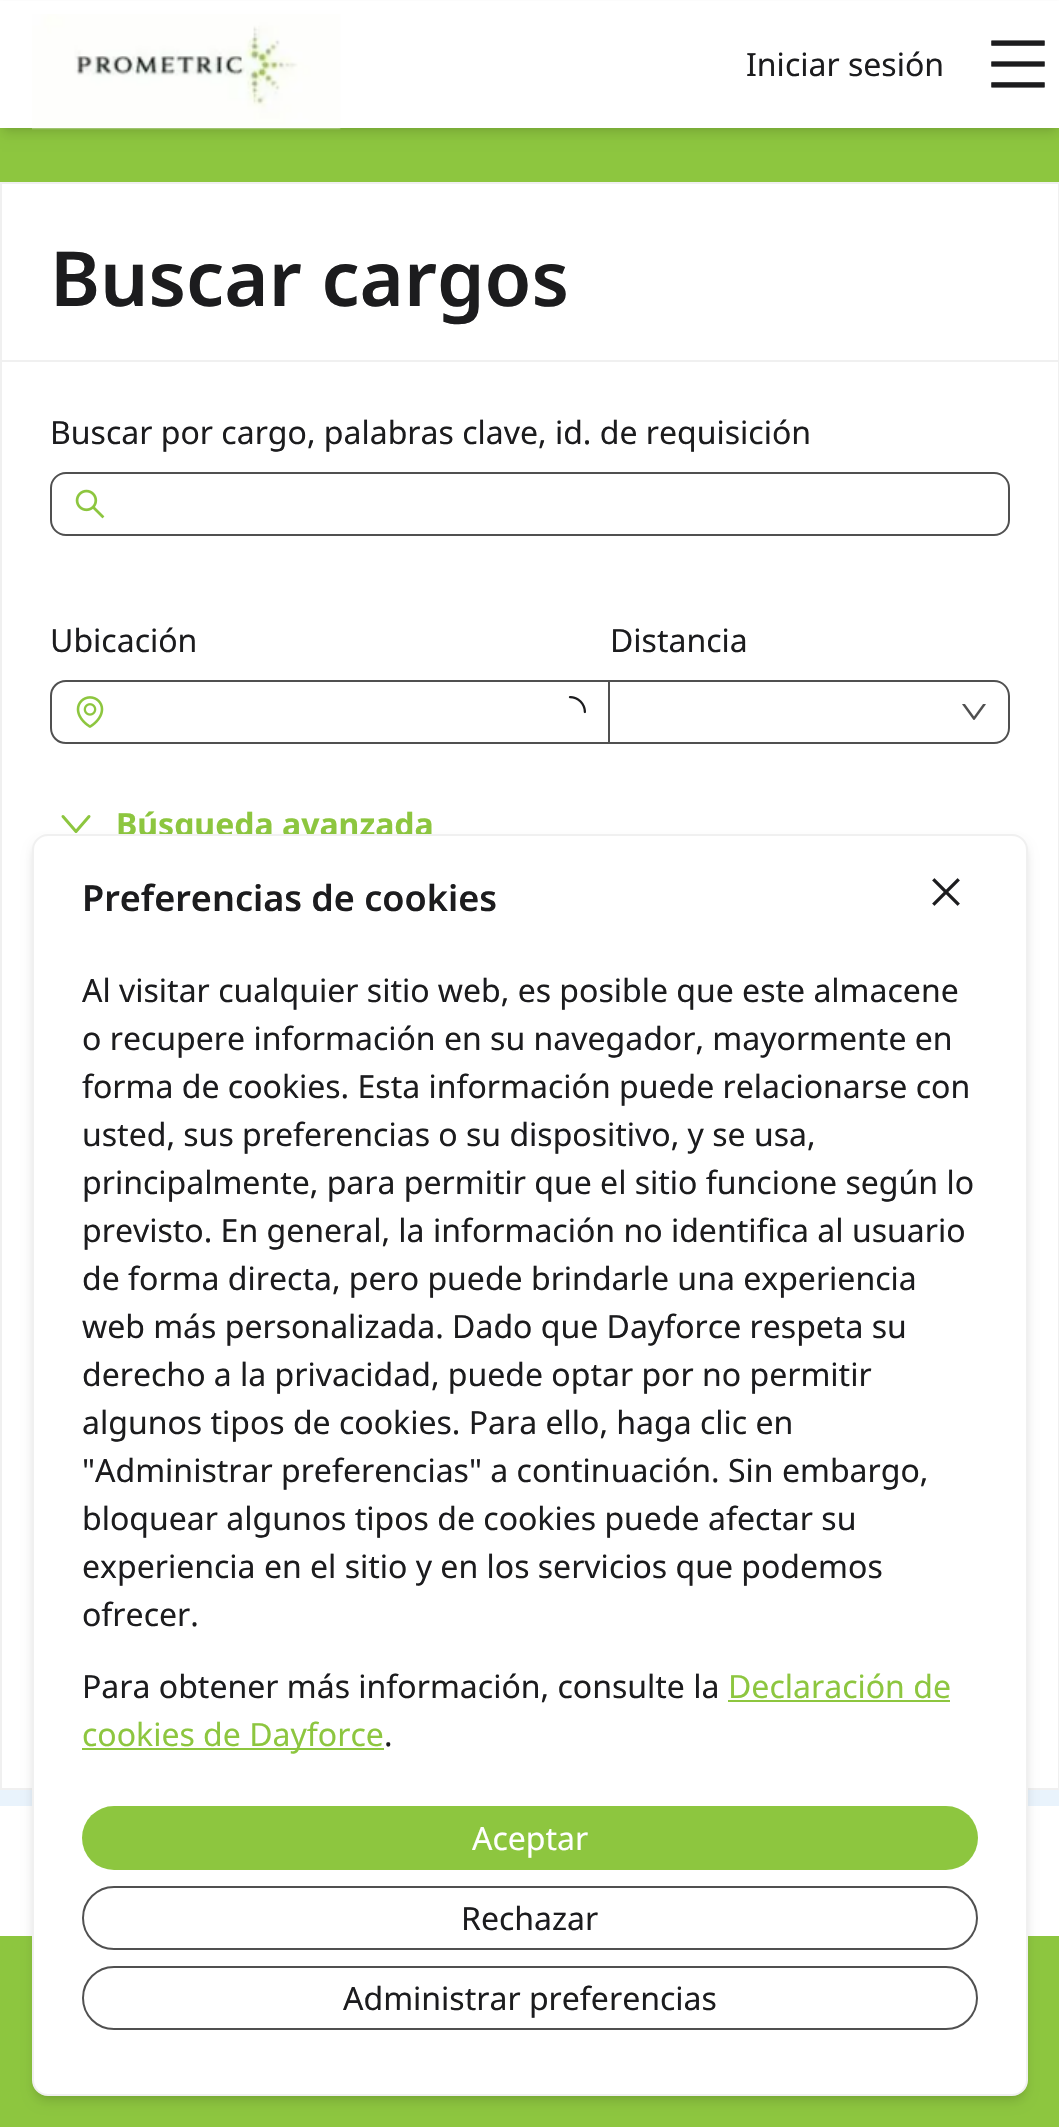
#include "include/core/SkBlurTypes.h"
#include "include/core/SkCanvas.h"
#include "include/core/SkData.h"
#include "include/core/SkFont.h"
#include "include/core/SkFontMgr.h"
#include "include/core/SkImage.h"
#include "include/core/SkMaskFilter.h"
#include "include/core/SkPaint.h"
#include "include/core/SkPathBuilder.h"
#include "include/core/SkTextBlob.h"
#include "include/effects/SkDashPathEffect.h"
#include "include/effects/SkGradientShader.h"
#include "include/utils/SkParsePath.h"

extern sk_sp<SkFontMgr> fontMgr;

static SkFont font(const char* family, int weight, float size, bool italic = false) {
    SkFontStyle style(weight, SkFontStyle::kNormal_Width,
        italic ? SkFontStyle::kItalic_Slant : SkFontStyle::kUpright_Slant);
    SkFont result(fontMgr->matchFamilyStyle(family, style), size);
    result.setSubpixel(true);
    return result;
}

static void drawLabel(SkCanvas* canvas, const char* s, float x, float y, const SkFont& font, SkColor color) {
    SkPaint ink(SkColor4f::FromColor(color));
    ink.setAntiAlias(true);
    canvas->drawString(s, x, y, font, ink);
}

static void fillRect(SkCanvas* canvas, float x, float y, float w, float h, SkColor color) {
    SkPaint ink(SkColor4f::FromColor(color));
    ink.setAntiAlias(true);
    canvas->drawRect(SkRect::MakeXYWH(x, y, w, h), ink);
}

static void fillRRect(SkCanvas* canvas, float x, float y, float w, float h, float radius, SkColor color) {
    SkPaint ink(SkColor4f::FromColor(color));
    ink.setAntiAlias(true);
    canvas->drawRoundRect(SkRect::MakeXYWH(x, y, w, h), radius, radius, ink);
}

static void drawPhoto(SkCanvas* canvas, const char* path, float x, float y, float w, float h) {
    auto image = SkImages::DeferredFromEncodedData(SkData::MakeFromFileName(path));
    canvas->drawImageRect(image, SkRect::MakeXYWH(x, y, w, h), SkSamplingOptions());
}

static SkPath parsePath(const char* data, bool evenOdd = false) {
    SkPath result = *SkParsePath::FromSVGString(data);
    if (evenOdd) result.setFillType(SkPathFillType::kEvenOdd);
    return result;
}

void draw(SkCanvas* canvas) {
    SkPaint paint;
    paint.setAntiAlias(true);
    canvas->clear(0xFFFFFFFF);
    fillRect(canvas, 0, 128, 1059, 54, 0xFF8DC63F);
    paint.setColor(0x1A000000);
    paint.setMaskFilter(SkMaskFilter::MakeBlur(kNormal_SkBlurStyle, 4));
    canvas->drawRect(SkRect::MakeXYWH(4, 8, 1052, 120), paint);
    paint.setMaskFilter(nullptr);
    paint.setMaskFilter(SkMaskFilter::MakeBlur(kNormal_SkBlurStyle, 6));
    canvas->drawRect(SkRect::MakeXYWH(2, 10, 1056, 124), paint);
    paint.setMaskFilter(nullptr);
    fillRect(canvas, 0, 1, 1059, 127, 0xFFFFFFFF);
    drawPhoto(canvas, "assets/img1.png", 32, 14, 309, 116);
    SkFont font1 = font("Noto Sans", 400, 32);
    drawLabel(canvas, "Iniciar sesión", 746, 76, font1, 0xFF1C1C1E);
    drawPhoto(canvas, "assets/img2.png", 991, 40, 54, 48);
    fillRect(canvas, 0, 1790, 1059, 16, 0xFFE9F3FC);
    paint.setStroke(true);
    paint.setStrokeWidth(2);
    paint.setColor(0xFFF0F0F0);
    canvas->drawRect(SkRect::MakeXYWH(1, 183, 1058, 1606), paint);
    fillRect(canvas, 2, 360, 1056, 2, 0xFFF0F0F0);
    SkFont font2 = font("Noto Sans", 600, 76);
    drawLabel(canvas, "Buscar cargos", 50, 306, font2, 0xFF1C1C1E);
    drawLabel(canvas, "Buscar por cargo, palabras clave, id. de requisición", 50, 444, font1, 0xFF1C1C1E);
    paint.setColor(0xFF505050);
    canvas->drawRoundRect(SkRect::MakeXYWH(51, 473, 958, 62), 15, 15, paint);
    drawPhoto(canvas, "assets/img3.png", 75, 489, 30, 30);
    drawLabel(canvas, "Ubicación", 50, 652, font1, 0xFF1C1C1E);
    canvas->drawPath(parsePath("M66 681H609V743H66C57.5 743 51 736.5 51 728V696C51 687.5 57.5 681 66 681Z"), paint);
    drawPhoto(canvas, "assets/img4.png", 76, 696, 28, 32);
    drawPhoto(canvas, "assets/img5.png", 568, 696, 18, 18);
    drawLabel(canvas, "Distancia", 610, 652, font1, 0xFF1C1C1E);
    paint.setStroke(false);
    canvas->drawPath(parsePath("M610 680H994C1003 680 1010 687 1010 696V728C1010 737 1003 744 994 744H610ZM610 682H994C1002 682 1008 688 1008 696V728C1008 736 1002 742 994 742H610Z", true), paint);
    drawPhoto(canvas, "assets/img6.png", 962, 704, 24, 16);
    paint.setStroke(true);
    paint.setStrokeWidth(3);
    paint.setStrokeCap(SkPaint::kRound_Cap);
    paint.setStrokeJoin(SkPaint::kRound_Join);
    paint.setColor(0xFF8DC63F);
    canvas->drawPath(parsePath("M63 816.5L76 831.5L89 816.5"), paint);
    SkFont font3 = font("Noto Sans", 700, 32);
    drawLabel(canvas, "Búsqueda avanzada", 116, 836, font3, 0xFF8DC63F);
    fillRect(canvas, 0, 1936, 1059, 191, 0xFF8DC63F);
    paint.setStroke(false);
    paint.setColor(0x1A000000);
    paint.setMaskFilter(SkMaskFilter::MakeBlur(kNormal_SkBlurStyle, 4));
    canvas->drawRoundRect(SkRect::MakeXYWH(36, 842, 988, 1254), 12, 12, paint);
    paint.setMaskFilter(nullptr);
    paint.setMaskFilter(SkMaskFilter::MakeBlur(kNormal_SkBlurStyle, 6));
    canvas->drawRoundRect(SkRect::MakeXYWH(34, 844, 992, 1258), 14, 14, paint);
    paint.setMaskFilter(nullptr);
    paint.setColor(0xFFFFFFFF);
    canvas->drawRoundRect(SkRect::MakeXYWH(33, 835, 994, 1260), 15, 15, paint);
    paint.setStroke(true);
    paint.setStrokeWidth(2);
    paint.setStrokeCap(SkPaint::kButt_Cap);
    paint.setStrokeJoin(SkPaint::kMiter_Join);
    paint.setColor(0xFFF0F0F0);
    canvas->drawRoundRect(SkRect::MakeXYWH(33, 835, 994, 1260), 15, 15, paint);
    SkFont font4 = font("Noto Sans", 600, 36);
    drawLabel(canvas, "Preferencias de cookies", 82, 911, font4, 0xFF1C1C1E);
    drawPhoto(canvas, "assets/img7.png", 932, 878, 28, 28);
    drawLabel(canvas, "Al visitar cualquier sitio web, es posible que este almacene", 82, 1002, font1, 0xFF1C1C1E);
    drawLabel(canvas, "o recupere información en su navegador, mayormente en", 82, 1050, font1, 0xFF1C1C1E);
    drawLabel(canvas, "forma de cookies. Esta información puede relacionarse con", 82, 1098, font1, 0xFF1C1C1E);
    drawLabel(canvas, "usted, sus preferencias o su dispositivo, y se usa,", 82, 1146, font1, 0xFF1C1C1E);
    drawLabel(canvas, "principalmente, para permitir que el sitio funcione según lo", 82, 1194, font1, 0xFF1C1C1E);
    drawLabel(canvas, "previsto. En general, la información no identifica al usuario", 82, 1242, font1, 0xFF1C1C1E);
    drawLabel(canvas, "de forma directa, pero puede brindarle una experiencia", 82, 1290, font1, 0xFF1C1C1E);
    drawLabel(canvas, "web más personalizada. Dado que Dayforce respeta su", 82, 1338, font1, 0xFF1C1C1E);
    drawLabel(canvas, "derecho a la privacidad, puede optar por no permitir", 82, 1386, font1, 0xFF1C1C1E);
    drawLabel(canvas, "algunos tipos de cookies. Para ello, haga clic en", 82, 1434, font1, 0xFF1C1C1E);
    drawLabel(canvas, "\"Administrar preferencias\" a continuación. Sin embargo,", 82, 1482, font1, 0xFF1C1C1E);
    drawLabel(canvas, "bloquear algunos tipos de cookies puede afectar su", 82, 1530, font1, 0xFF1C1C1E);
    drawLabel(canvas, "experiencia en el sitio y en los servicios que podemos", 82, 1578, font1, 0xFF1C1C1E);
    drawLabel(canvas, "ofrecer.", 82, 1626, font1, 0xFF1C1C1E);
    drawLabel(canvas, "Para obtener más información, consulte la", 82, 1698, font1, 0xFF1C1C1E);
    drawLabel(canvas, "Declaración de", 728, 1698, font1, 0xFF8DC63F);
    fillRect(canvas, 728, 1700, 222, 2, 0xFF8DC63F);
    fillRect(canvas, 82, 1748, 302, 2, 0xFF8DC63F);
    drawLabel(canvas, "cookies de Dayforce", 82, 1746, font1, 0xFF8DC63F);
    drawLabel(canvas, ".", 384, 1746, font1, 0xFF1C1C1E);
    fillRRect(canvas, 82, 1806, 896, 64, 32, 0xFF8DC63F);
    drawLabel(canvas, "Aceptar", 472, 1850, font1, 0xFFFFFFFF);
    paint.setColor(0xFF505050);
    canvas->drawRoundRect(SkRect::MakeXYWH(83, 1887, 894, 62), 31, 31, paint);
    drawLabel(canvas, "Rechazar", 461, 1930, font1, 0xFF1C1C1E);
    canvas->drawRoundRect(SkRect::MakeXYWH(83, 1967, 894, 62), 31, 31, paint);
    drawLabel(canvas, "Administrar preferencias", 343, 2010, font1, 0xFF1C1C1E);
}
